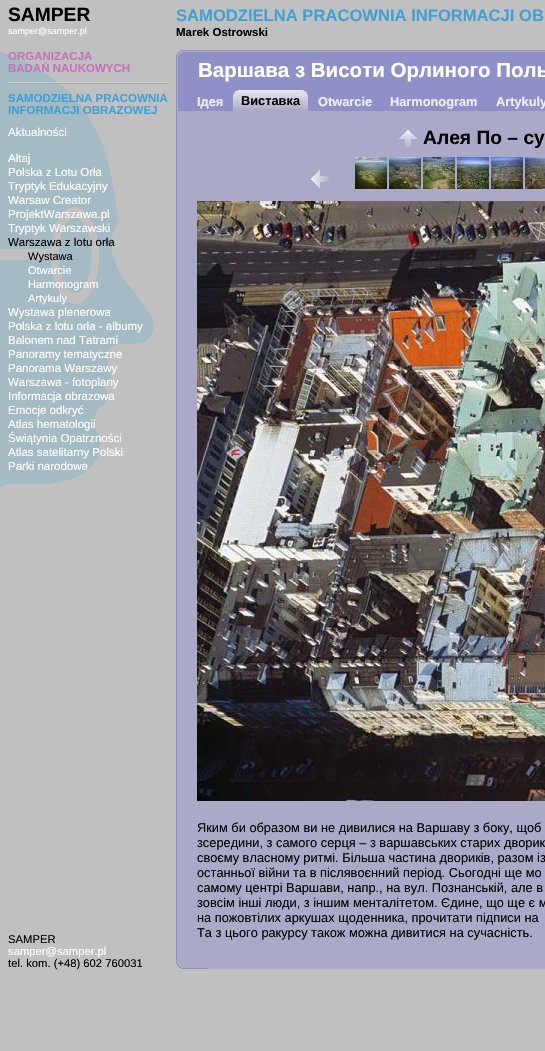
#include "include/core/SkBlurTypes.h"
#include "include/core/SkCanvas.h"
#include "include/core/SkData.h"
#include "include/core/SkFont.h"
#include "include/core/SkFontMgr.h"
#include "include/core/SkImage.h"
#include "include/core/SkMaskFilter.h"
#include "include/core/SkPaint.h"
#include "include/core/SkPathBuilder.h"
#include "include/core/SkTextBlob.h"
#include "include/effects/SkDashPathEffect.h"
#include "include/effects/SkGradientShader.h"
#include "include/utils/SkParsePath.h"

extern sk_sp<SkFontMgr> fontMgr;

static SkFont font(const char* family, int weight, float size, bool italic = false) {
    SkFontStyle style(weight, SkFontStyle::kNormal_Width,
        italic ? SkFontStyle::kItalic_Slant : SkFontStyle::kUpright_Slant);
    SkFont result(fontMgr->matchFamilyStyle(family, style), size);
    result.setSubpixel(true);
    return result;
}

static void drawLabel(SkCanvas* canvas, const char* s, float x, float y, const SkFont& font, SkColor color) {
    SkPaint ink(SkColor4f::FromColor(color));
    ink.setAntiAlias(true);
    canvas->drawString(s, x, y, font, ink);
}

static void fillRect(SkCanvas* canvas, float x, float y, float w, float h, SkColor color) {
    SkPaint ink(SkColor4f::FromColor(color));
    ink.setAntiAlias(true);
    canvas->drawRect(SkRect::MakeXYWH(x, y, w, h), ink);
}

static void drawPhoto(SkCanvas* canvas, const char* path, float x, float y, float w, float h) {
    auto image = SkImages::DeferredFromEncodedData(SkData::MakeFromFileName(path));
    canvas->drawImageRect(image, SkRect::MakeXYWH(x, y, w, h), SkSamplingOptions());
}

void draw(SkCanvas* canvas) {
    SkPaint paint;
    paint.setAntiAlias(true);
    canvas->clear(0xFFC0C0C0);
    drawPhoto(canvas, "assets/img1.png", 0, 52, 154, 435);
    SkFont font1 = font("Liberation Sans", 700, 19.25f);
    drawLabel(canvas, "SAMPER", 8, 21, font1, 0xFF000000);
    SkFont font2 = font("Liberation Sans", 400, 9);
    drawLabel(canvas, "samper@samper.pl", 8, 34, font2, 0xFFFFFFFF);
    SkFont font3 = font("Liberation Sans", 700, 16.6f);
    drawLabel(canvas, "SAMODZIELNA PRACOWNIA INFORMACJI OB", 176, 21, font3, 0xFF43A0D3);
    SkFont font4 = font("Liberation Sans", 700, 11.5f);
    drawLabel(canvas, "Marek Ostrowski", 176, 36, font4, 0xFF000000);
    fillRect(canvas, 8, 82, 160, 1, 0xFFCCCCCC);
    drawLabel(canvas, "ORGANIZACJA", 8, 60, font4, 0xFFC473BB);
    drawLabel(canvas, "BADAŃ NAUKOWYCH", 8, 72, font4, 0xFFC473BB);
    fillRect(canvas, 8, 83, 160, 1, 0xFFAAAAAA);
    drawLabel(canvas, "SAMODZIELNA PRACOWNIA", 8, 102, font4, 0xFF43A0D3);
    drawLabel(canvas, "INFORMACJI OBRAZOWEJ", 8, 114, font4, 0xFF43A0D3);
    SkFont font5 = font("Liberation Sans", 400, 11.5f);
    drawLabel(canvas, "Aktualności", 8, 136, font5, 0xFFFFFFFF);
    drawLabel(canvas, "Ałtaj", 8, 162, font5, 0xFFFFFFFF);
    drawLabel(canvas, "Polska z Lotu Orła", 8, 176, font5, 0xFFFFFFFF);
    drawLabel(canvas, "Tryptyk Edukacyjny", 8, 190, font5, 0xFFFFFFFF);
    drawLabel(canvas, "Warsaw Creator", 8, 204, font5, 0xFFFFFFFF);
    drawLabel(canvas, "ProjektWarszawa.pl", 8, 218, font5, 0xFFFFFFFF);
    drawLabel(canvas, "Tryptyk Warszawski", 8, 232, font5, 0xFFFFFFFF);
    drawLabel(canvas, "Warszawa z lotu orła", 8, 246, font5, 0xFF000000);
    SkFont font6 = font("Liberation Sans", 400, 11);
    drawLabel(canvas, "Wystawa", 28, 260, font6, 0xFF000000);
    drawLabel(canvas, "Otwarcie", 28, 274, font6, 0xFFFFFFFF);
    drawLabel(canvas, "Harmonogram", 28, 288, font6, 0xFFFFFFFF);
    drawLabel(canvas, "Artykuly", 28, 302, font6, 0xFFFFFFFF);
    drawLabel(canvas, "Wystawa plenerowa", 8, 316, font5, 0xFFFFFFFF);
    drawLabel(canvas, "Polska z lotu orła - albumy", 8, 330, font5, 0xFFFFFFFF);
    drawLabel(canvas, "Balonem nad Tatrami", 8, 344, font5, 0xFFFFFFFF);
    drawLabel(canvas, "Panoramy tematyczne", 8, 358, font5, 0xFFFFFFFF);
    drawLabel(canvas, "Panorama Warszawy", 8, 372, font5, 0xFFFFFFFF);
    drawLabel(canvas, "Warszawa - fotoplany", 8, 386, font5, 0xFFFFFFFF);
    drawLabel(canvas, "Informacja obrazowa", 8, 400, font5, 0xFFFFFFFF);
    drawLabel(canvas, "Emocje odkryć", 8, 414, font5, 0xFFFFFFFF);
    drawLabel(canvas, "Atlas hematologii", 8, 428, font5, 0xFFFFFFFF);
    drawLabel(canvas, "Świątynia Opatrzności", 8, 442, font5, 0xFFFFFFFF);
    drawLabel(canvas, "Atlas satelitarny Polski", 8, 456, font5, 0xFFFFFFFF);
    drawLabel(canvas, "Parki narodowe", 8, 470, font5, 0xFFFFFFFF);
    fillRect(canvas, 208, 50, 337, 61, 0xFF9090C8);
    fillRect(canvas, 208, 51, 337, 1, 0xFFAEAEC8);
    drawPhoto(canvas, "assets/img2.png", 176, 56, 32, 55);
    drawPhoto(canvas, "assets/img3.png", 176, 50, 32, 6);
    SkFont font7 = font("Liberation Sans", 700, 20.5f);
    drawLabel(canvas, "Варшава з Висоти Орлиного Поль", 198, 77, font7, 0xFFFFFFFF);
    SkFont font8 = font("Liberation Sans", 700, 12.8f);
    drawLabel(canvas, "Ідея", 197, 106, font8, 0xFFEEEEFF);
    drawPhoto(canvas, "assets/img4.png", 233, 90, 5, 21);
    drawPhoto(canvas, "assets/img5.png", 303, 90, 5, 21);
    fillRect(canvas, 238, 109, 65, 2, 0xFFAAAAC8);
    drawPhoto(canvas, "assets/img6.png", 238, 90, 65, 19);
    drawLabel(canvas, "Виставка", 241, 105, font8, 0xFF000000);
    drawLabel(canvas, "Otwarcie", 318, 106, font8, 0xFFEEEEFF);
    drawLabel(canvas, "Harmonogram", 390, 106, font8, 0xFFEEEEFF);
    drawLabel(canvas, "Artykuly", 496, 106, font8, 0xFFEEEEFF);
    fillRect(canvas, 177, 111, 368, 850, 0xFFAAAAC8);
    fillRect(canvas, 176, 111, 1, 850, 0xFF9090C8);
    drawPhoto(canvas, "assets/img7.png", 399, 130, 18, 18);
    drawLabel(canvas, "Алея По – су", 423, 144, font1, 0xFF000000);
    drawPhoto(canvas, "assets/img8.png", 355, 157, 32, 32);
    drawPhoto(canvas, "assets/img9.png", 389, 157, 32, 32);
    drawPhoto(canvas, "assets/img10.png", 423, 157, 32, 32);
    drawPhoto(canvas, "assets/img11.png", 457, 157, 32, 32);
    drawPhoto(canvas, "assets/img12.png", 491, 157, 32, 32);
    drawPhoto(canvas, "assets/img13.png", 525, 157, 20, 32);
    drawPhoto(canvas, "assets/img14.png", 311, 170, 18, 18);
    drawPhoto(canvas, "assets/img15.png", 197, 201, 348, 600);
    SkFont font9 = font("Liberation Sans", 400, 12.8f);
    drawLabel(canvas, "Яким би образом ви не дивилися на Варшаву з боку, щоб", 197, 832, font9, 0xFF000000);
    drawLabel(canvas, "зсередини, з самого серця – з варшавських старих дворик", 197, 847, font9, 0xFF000000);
    drawLabel(canvas, "своєму власному ритмі. Більша частина двориків, разом із", 197, 862, font9, 0xFF000000);
    drawLabel(canvas, "останньої війни та в післявоєнний період. Сьогодні ще мо", 197, 877, font9, 0xFF000000);
    drawLabel(canvas, "самому центрі Варшави, напр., на вул. Познанській, але в", 197, 892, font9, 0xFF000000);
    drawLabel(canvas, "зовсім інші люди, з іншим менталітетом. Єдине, що ще є м", 197, 907, font9, 0xFF000000);
    drawLabel(canvas, "на пожовтілих аркушах щоденника, прочитати підписи на", 197, 922, font9, 0xFF000000);
    drawLabel(canvas, "Та з цього ракурсу також можна дивитися на сучасність.", 197, 937, font9, 0xFF000000);
    drawPhoto(canvas, "assets/img16.png", 176, 961, 32, 8);
    fillRect(canvas, 208, 961, 337, 8, 0xFFAAAAC8);
    SkFont font10 = font("Liberation Sans", 400, 11.25f);
    drawLabel(canvas, "SAMPER", 8, 943, font10, 0xFF000000);
    drawLabel(canvas, "samper@samper.pl", 8, 955, font10, 0xFFFFFFFF);
    drawLabel(canvas, "tel. kom. (+48) 602 760031", 8, 967, font10, 0xFF000000);
}
